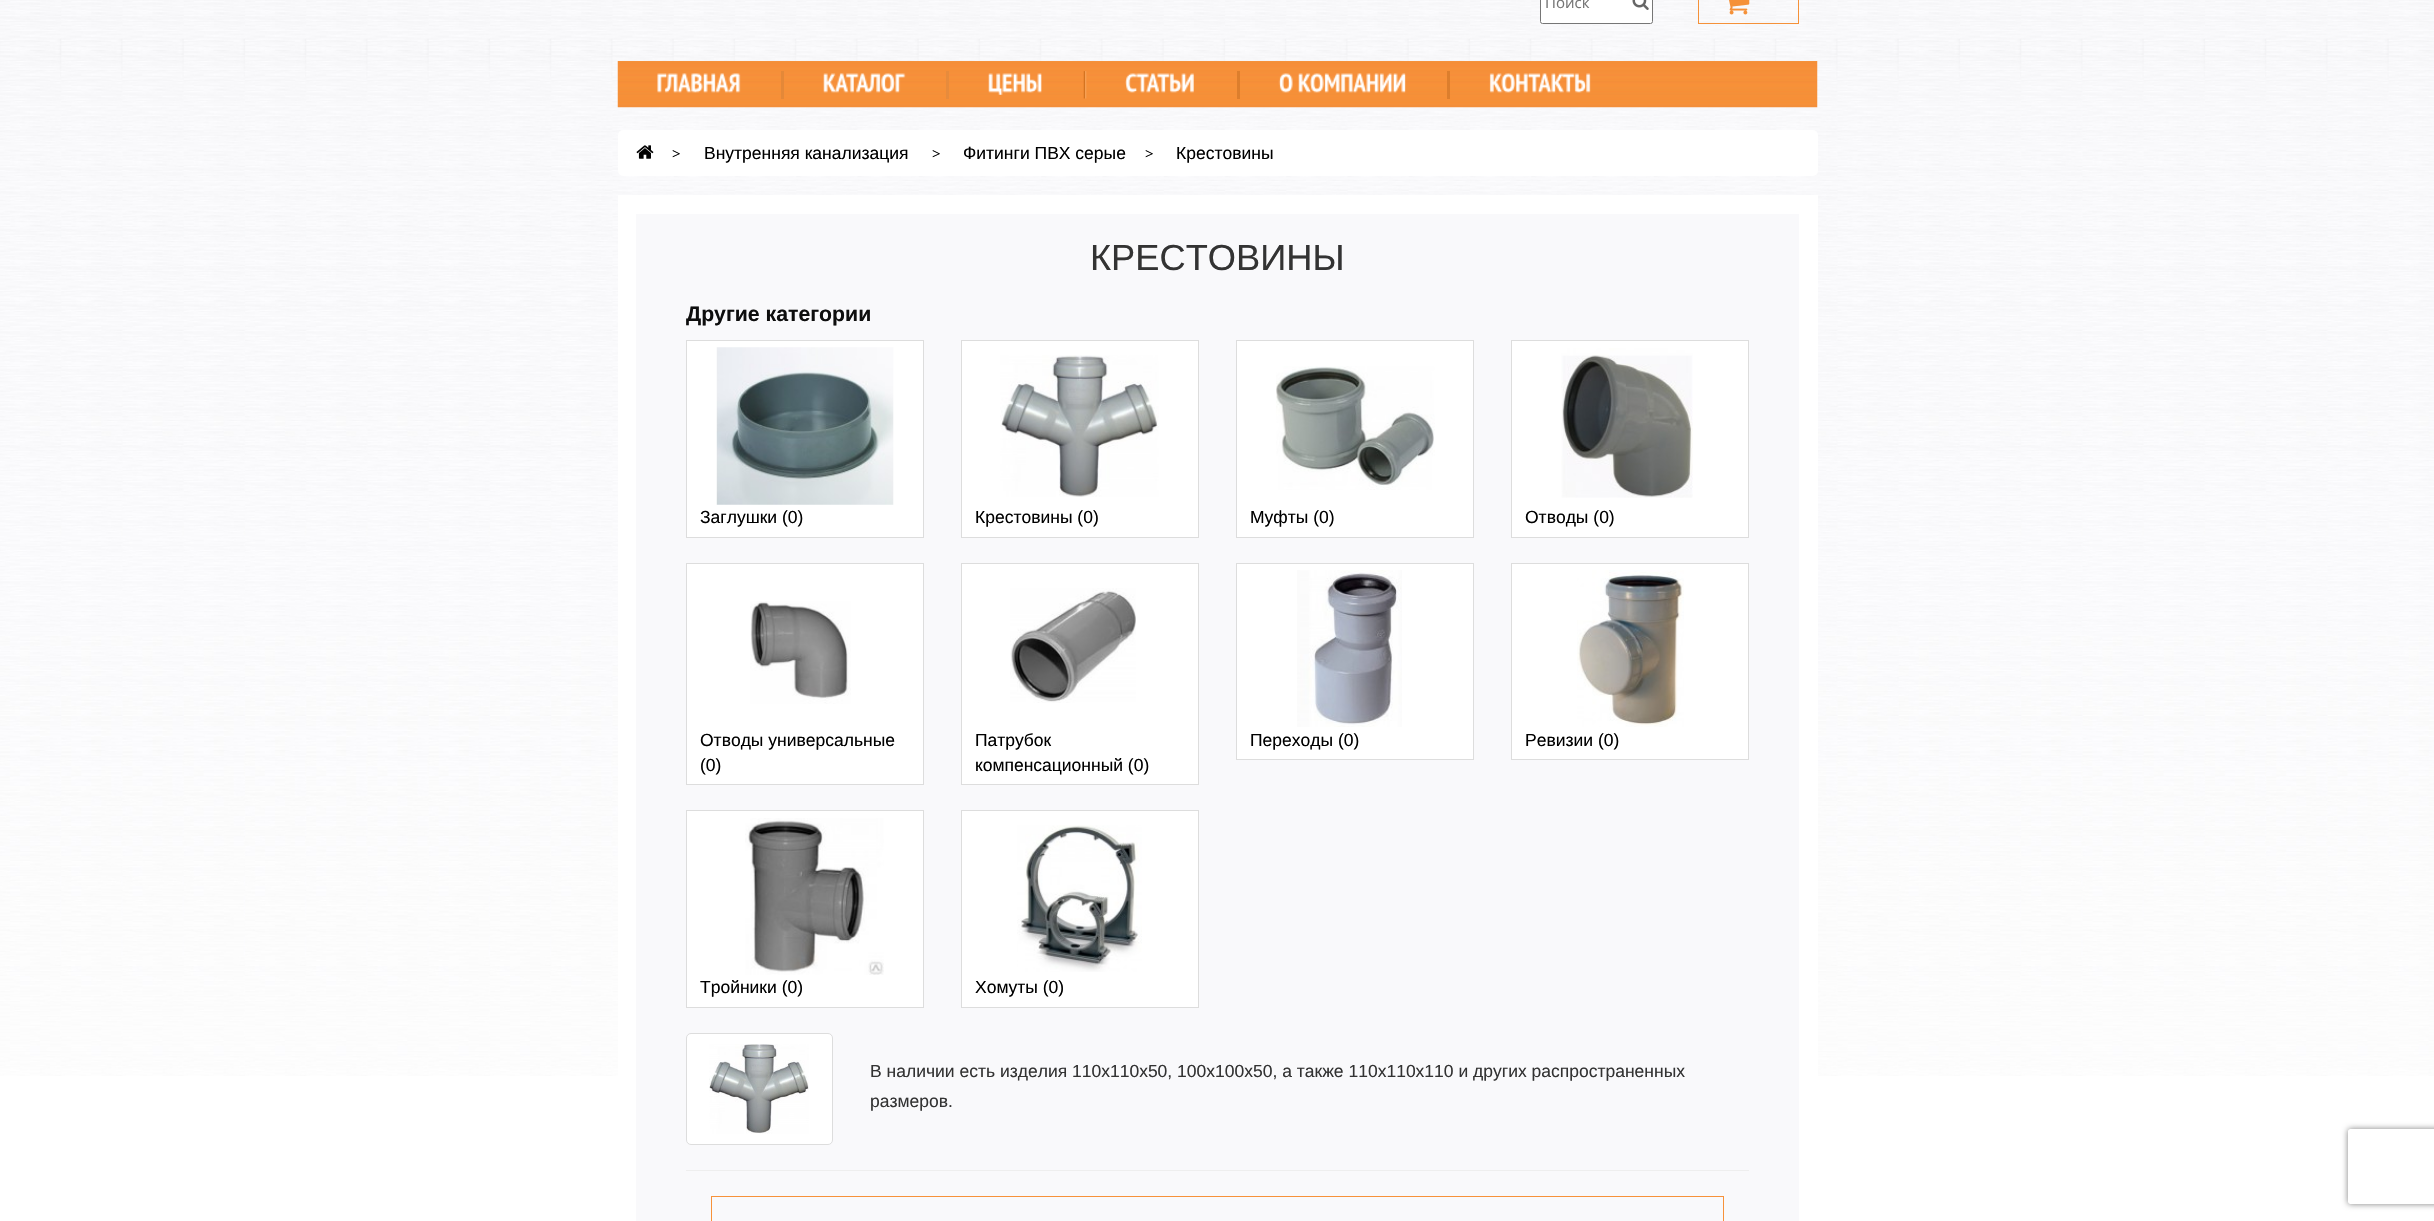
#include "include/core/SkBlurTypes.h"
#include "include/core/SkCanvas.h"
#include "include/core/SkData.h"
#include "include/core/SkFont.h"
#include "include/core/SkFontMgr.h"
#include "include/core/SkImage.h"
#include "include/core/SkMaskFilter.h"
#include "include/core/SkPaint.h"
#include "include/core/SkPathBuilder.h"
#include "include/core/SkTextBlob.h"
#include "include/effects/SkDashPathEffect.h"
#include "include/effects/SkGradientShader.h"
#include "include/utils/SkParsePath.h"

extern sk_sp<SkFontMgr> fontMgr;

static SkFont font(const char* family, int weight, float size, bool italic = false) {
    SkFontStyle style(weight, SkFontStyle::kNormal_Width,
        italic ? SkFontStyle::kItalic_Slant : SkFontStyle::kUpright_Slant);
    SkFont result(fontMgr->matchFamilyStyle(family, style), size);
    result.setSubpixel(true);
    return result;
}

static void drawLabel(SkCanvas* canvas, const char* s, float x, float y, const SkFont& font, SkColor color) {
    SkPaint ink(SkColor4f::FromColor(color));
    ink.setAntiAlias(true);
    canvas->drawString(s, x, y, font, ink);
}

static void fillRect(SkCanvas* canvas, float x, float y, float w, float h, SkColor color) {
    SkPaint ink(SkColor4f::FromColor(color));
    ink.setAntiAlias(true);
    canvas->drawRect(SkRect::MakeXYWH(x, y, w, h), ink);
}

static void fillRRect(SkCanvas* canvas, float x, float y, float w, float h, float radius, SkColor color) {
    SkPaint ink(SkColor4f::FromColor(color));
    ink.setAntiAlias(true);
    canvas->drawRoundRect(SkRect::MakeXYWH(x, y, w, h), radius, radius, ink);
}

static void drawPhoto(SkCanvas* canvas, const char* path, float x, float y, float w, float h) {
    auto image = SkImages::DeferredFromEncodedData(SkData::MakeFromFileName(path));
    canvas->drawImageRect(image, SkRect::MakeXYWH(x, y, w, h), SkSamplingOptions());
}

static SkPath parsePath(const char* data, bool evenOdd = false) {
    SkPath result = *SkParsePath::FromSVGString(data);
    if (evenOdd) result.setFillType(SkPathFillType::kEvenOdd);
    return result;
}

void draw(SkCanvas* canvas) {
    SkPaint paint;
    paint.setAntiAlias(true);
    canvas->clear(0xFFFFFFFF);
    drawPhoto(canvas, "assets/img1.png", 0, 0, 2434, 1076);
    paint.setColor(0xFFFFFFFF);
    canvas->drawRoundRect(SkRect::MakeXYWH(1540.5f, -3.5f, 112, 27), 2, 2, paint);
    paint.setStroke(true);
    paint.setStrokeWidth(1);
    paint.setColor(0xFF767676);
    canvas->drawRoundRect(SkRect::MakeXYWH(1540.5f, -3.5f, 112, 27), 2, 2, paint);
    SkFont font1 = font("Open Sans", 400, 15);
    drawLabel(canvas, "Поиск", 1545, 8, font1, 0xFF757575);
    drawPhoto(canvas, "assets/img2.png", 1632, 0, 17, 10);
    paint.setColor(0xFFF59139);
    canvas->drawRect(SkRect::MakeXYWH(1698.5f, -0.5f, 100, 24), paint);
    drawPhoto(canvas, "assets/img3.png", 1729, 0, 21, 15);
    drawPhoto(canvas, "assets/img4.png", 617, 61, 1201, 47);
    drawPhoto(canvas, "assets/img5.png", 657, 73, 84, 20);
    fillRect(canvas, 781, 71, 3, 28, 0xFFE48838);
    drawPhoto(canvas, "assets/img6.png", 823, 73, 83, 20);
    fillRect(canvas, 946, 71, 3, 28, 0xFFE78B3C);
    drawPhoto(canvas, "assets/img7.png", 988, 73, 54, 22);
    drawPhoto(canvas, "assets/img8.png", 1083, 71, 4, 28);
    drawPhoto(canvas, "assets/img9.png", 1125, 73, 69, 20);
    fillRect(canvas, 1237, 71, 3, 28, 0xFFDC7E2D);
    drawPhoto(canvas, "assets/img10.png", 1278, 73, 15, 20);
    drawPhoto(canvas, "assets/img11.png", 1298, 73, 108, 20);
    fillRect(canvas, 1447, 71, 3, 28, 0xFFDC7E2D);
    drawPhoto(canvas, "assets/img12.png", 1489, 73, 102, 20);
    fillRRect(canvas, 618, 130, 1200, 46, 5, 0xFFFFFFFF);
    drawPhoto(canvas, "assets/img13.png", 636, 145, 18, 14);
    drawLabel(canvas, ">", 672, 159, font1, 0xFF000000);
    SkFont font2 = font("Liberation Sans", 400, 17.5f);
    drawLabel(canvas, "Внутренняя канализация", 704, 159, font2, 0xFF000000);
    drawLabel(canvas, ">", 932, 159, font1, 0xFF000000);
    drawLabel(canvas, "Фитинги ПВХ серые", 963, 159, font2, 0xFF000000);
    drawLabel(canvas, ">", 1145, 159, font1, 0xFF000000);
    drawLabel(canvas, "Крестовины", 1176, 159, font2, 0xFF000000);
    paint.setStrokeWidth(19);
    paint.setColor(0xFFFFFFFF);
    canvas->drawRect(SkRect::MakeXYWH(627.5f, 204.5f, 1181, 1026), paint);
    fillRect(canvas, 636, 214, 1163, 1007, 0xFFF9F9FB);
    SkFont font3 = font("Liberation Sans", 400, 36.25f);
    drawLabel(canvas, "КРЕСТОВИНЫ", 1090, 270, font3, 0xFF333333);
    SkFont font4 = font("Liberation Sans", 700, 21.25f);
    drawLabel(canvas, "Другие категории", 686, 321, font4, 0xFF0E0E0E);
    paint.setStroke(false);
    canvas->drawRect(SkRect::MakeXYWH(686.5f, 340.5f, 237, 197), paint);
    paint.setStroke(true);
    paint.setStrokeWidth(1);
    paint.setColor(0xFFDDDDDD);
    canvas->drawRect(SkRect::MakeXYWH(686.5f, 340.5f, 237, 197), paint);
    drawPhoto(canvas, "assets/img14.png", 716, 347, 178, 158);
    drawLabel(canvas, "Заглушки (0)", 700, 523, font2, 0xFF000000);
    paint.setStroke(false);
    paint.setColor(0xFFFFFFFF);
    canvas->drawRect(SkRect::MakeXYWH(961.5f, 340.5f, 237, 197), paint);
    paint.setStroke(true);
    paint.setColor(0xFFDDDDDD);
    canvas->drawRect(SkRect::MakeXYWH(961.5f, 340.5f, 237, 197), paint);
    drawPhoto(canvas, "assets/img15.png", 1000, 355, 159, 142);
    drawLabel(canvas, "Крестовины (0)", 975, 523, font2, 0xFF000000);
    paint.setStroke(false);
    paint.setColor(0xFFFFFFFF);
    canvas->drawRect(SkRect::MakeXYWH(1236.5f, 340.5f, 237, 197), paint);
    paint.setStroke(true);
    paint.setColor(0xFFDDDDDD);
    canvas->drawRect(SkRect::MakeXYWH(1236.5f, 340.5f, 237, 197), paint);
    drawPhoto(canvas, "assets/img16.png", 1276, 366, 159, 124);
    drawLabel(canvas, "Муфты (0)", 1250, 523, font2, 0xFF000000);
    paint.setStroke(false);
    paint.setColor(0xFFFFFFFF);
    canvas->drawRect(SkRect::MakeXYWH(1511.5f, 340.5f, 237, 197), paint);
    paint.setStroke(true);
    paint.setColor(0xFFDDDDDD);
    canvas->drawRect(SkRect::MakeXYWH(1511.5f, 340.5f, 237, 197), paint);
    drawPhoto(canvas, "assets/img17.png", 1561, 348, 132, 150);
    drawLabel(canvas, "Отводы (0)", 1525, 523, font2, 0xFF000000);
    paint.setStroke(false);
    paint.setColor(0xFFFFFFFF);
    canvas->drawRect(SkRect::MakeXYWH(686.5f, 563.5f, 237, 221), paint);
    paint.setStroke(true);
    paint.setColor(0xFFDDDDDD);
    canvas->drawRect(SkRect::MakeXYWH(686.5f, 563.5f, 237, 221), paint);
    drawPhoto(canvas, "assets/img18.png", 750, 601, 101, 103);
    drawLabel(canvas, "Отводы универсальные", 700, 746, font2, 0xFF000000);
    drawLabel(canvas, "(0)", 700, 771, font2, 0xFF000000);
    paint.setStroke(false);
    paint.setColor(0xFFFFFFFF);
    canvas->drawRect(SkRect::MakeXYWH(961.5f, 563.5f, 237, 221), paint);
    paint.setStroke(true);
    paint.setColor(0xFFDDDDDD);
    canvas->drawRect(SkRect::MakeXYWH(961.5f, 563.5f, 237, 221), paint);
    drawPhoto(canvas, "assets/img19.png", 1010, 588, 126, 115);
    drawLabel(canvas, "Патрубок", 975, 746, font2, 0xFF000000);
    drawLabel(canvas, "компенсационный (0)", 975, 771, font2, 0xFF000000);
    paint.setStroke(false);
    paint.setColor(0xFFFFFFFF);
    canvas->drawRect(SkRect::MakeXYWH(1236.5f, 563.5f, 237, 196), paint);
    paint.setStroke(true);
    paint.setColor(0xFFDDDDDD);
    canvas->drawRect(SkRect::MakeXYWH(1236.5f, 563.5f, 237, 196), paint);
    drawPhoto(canvas, "assets/img20.png", 1297, 570, 105, 157);
    drawLabel(canvas, "Переходы (0)", 1250, 746, font2, 0xFF000000);
    paint.setStroke(false);
    paint.setColor(0xFFFFFFFF);
    canvas->drawRect(SkRect::MakeXYWH(1511.5f, 563.5f, 237, 196), paint);
    paint.setStroke(true);
    paint.setColor(0xFFDDDDDD);
    canvas->drawRect(SkRect::MakeXYWH(1511.5f, 563.5f, 237, 196), paint);
    drawPhoto(canvas, "assets/img21.png", 1577, 570, 107, 157);
    drawLabel(canvas, "Ревизии (0)", 1525, 746, font2, 0xFF000000);
    paint.setStroke(false);
    paint.setColor(0xFFFFFFFF);
    canvas->drawRect(SkRect::MakeXYWH(686.5f, 810.5f, 237, 197), paint);
    paint.setStroke(true);
    paint.setColor(0xFFDDDDDD);
    canvas->drawRect(SkRect::MakeXYWH(686.5f, 810.5f, 237, 197), paint);
    drawPhoto(canvas, "assets/img22.png", 745, 818, 139, 157);
    drawLabel(canvas, "Тройники (0)", 700, 993, font2, 0xFF000000);
    paint.setStroke(false);
    paint.setColor(0xFFFFFFFF);
    canvas->drawRect(SkRect::MakeXYWH(961.5f, 810.5f, 237, 197), paint);
    paint.setStroke(true);
    paint.setColor(0xFFDDDDDD);
    canvas->drawRect(SkRect::MakeXYWH(961.5f, 810.5f, 237, 197), paint);
    drawPhoto(canvas, "assets/img23.png", 1017, 825, 125, 147);
    drawLabel(canvas, "Хомуты (0)", 975, 993, font2, 0xFF000000);
    paint.setStroke(false);
    paint.setColor(0xFFFFFFFF);
    canvas->drawRoundRect(SkRect::MakeXYWH(686.5f, 1033.5f, 146, 111), 4.5f, 4.5f, paint);
    paint.setStroke(true);
    paint.setColor(0xFFDDDDDD);
    canvas->drawRoundRect(SkRect::MakeXYWH(686.5f, 1033.5f, 146, 111), 4.5f, 4.5f, paint);
    drawPhoto(canvas, "assets/img24.png", 709, 1044, 100, 90);
    drawLabel(canvas, "В наличии есть изделия 110х110х50, 100х100х50, а также 110х110х110 и других распространенных", 870, 1077, font2, 0xFF333333);
    drawLabel(canvas, "размеров.", 870, 1107, font2, 0xFF333333);
    fillRect(canvas, 686, 1170, 1063, 1, 0xFFEEEEEE);
    paint.setColor(0xFFF7923A);
    canvas->drawRect(SkRect::MakeXYWH(711.5f, 1196.5f, 1012, 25), paint);
    canvas->save();
    canvas->clipPath(parsePath("M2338 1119H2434V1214H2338ZM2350.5 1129H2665.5C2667 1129 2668 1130 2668 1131.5V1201.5C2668 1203 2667 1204 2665.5 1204H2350.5C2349 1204 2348 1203 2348 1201.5V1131.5C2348 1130 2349 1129 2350.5 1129Z", true), true);
    paint.setStroke(false);
    paint.setColor(0xFF808080);
    paint.setMaskFilter(SkMaskFilter::MakeBlur(kNormal_SkBlurStyle, 3));
    canvas->drawRoundRect(SkRect::MakeXYWH(2348, 1129, 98, 75), 2.5f, 2.5f, paint);
    paint.setMaskFilter(nullptr);
    canvas->restore();
}
